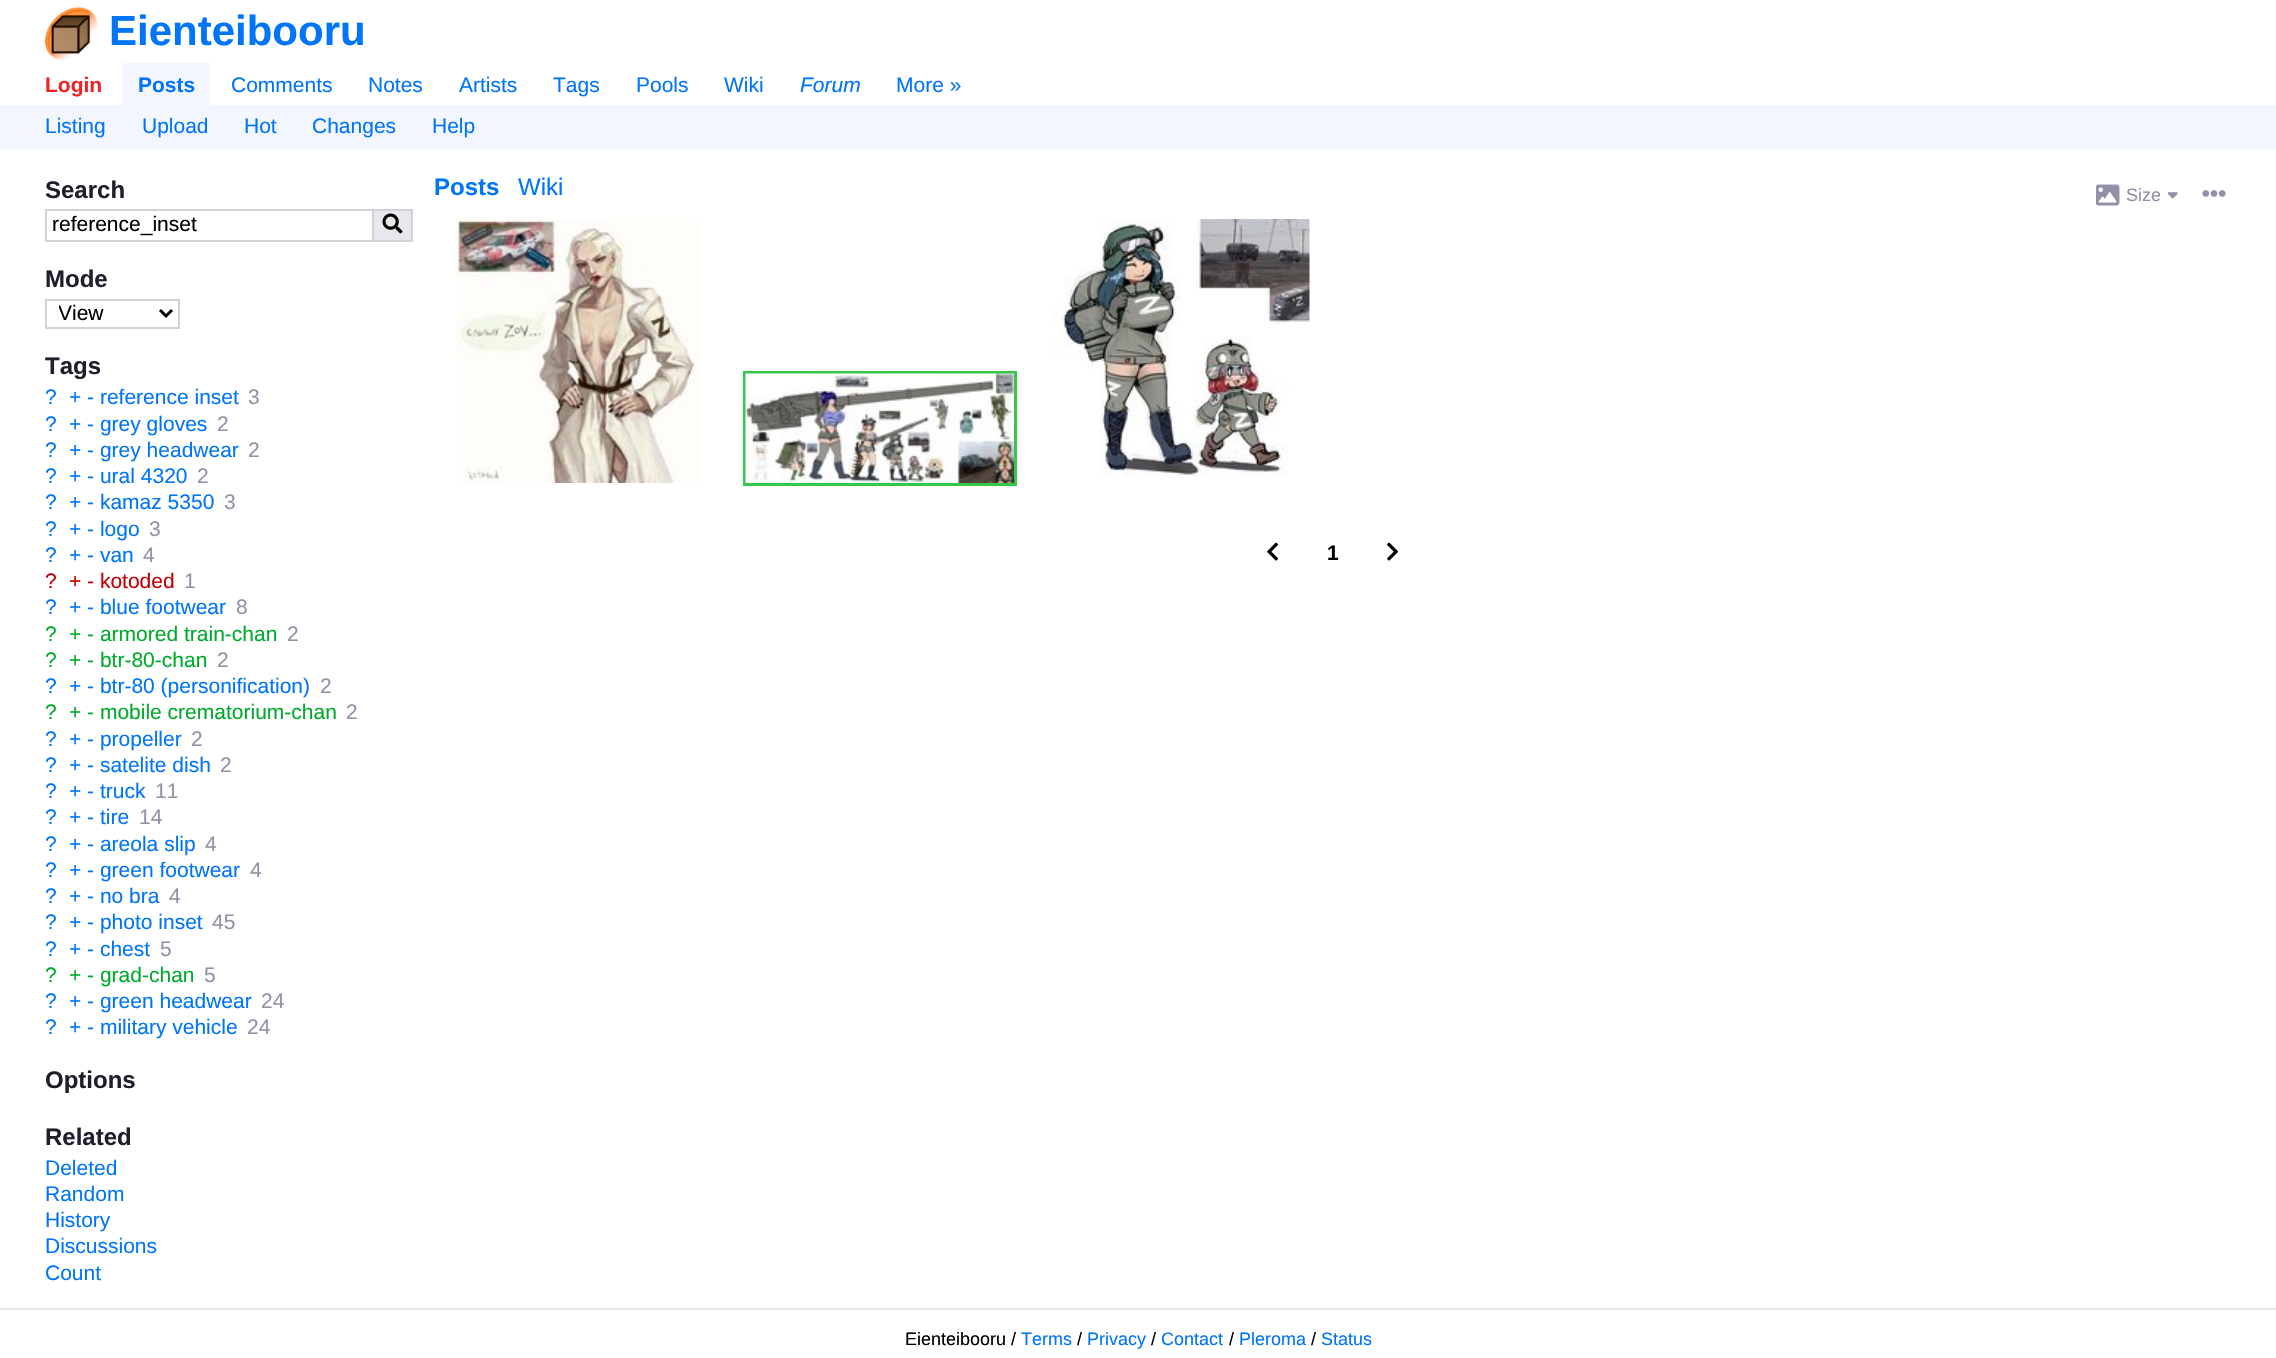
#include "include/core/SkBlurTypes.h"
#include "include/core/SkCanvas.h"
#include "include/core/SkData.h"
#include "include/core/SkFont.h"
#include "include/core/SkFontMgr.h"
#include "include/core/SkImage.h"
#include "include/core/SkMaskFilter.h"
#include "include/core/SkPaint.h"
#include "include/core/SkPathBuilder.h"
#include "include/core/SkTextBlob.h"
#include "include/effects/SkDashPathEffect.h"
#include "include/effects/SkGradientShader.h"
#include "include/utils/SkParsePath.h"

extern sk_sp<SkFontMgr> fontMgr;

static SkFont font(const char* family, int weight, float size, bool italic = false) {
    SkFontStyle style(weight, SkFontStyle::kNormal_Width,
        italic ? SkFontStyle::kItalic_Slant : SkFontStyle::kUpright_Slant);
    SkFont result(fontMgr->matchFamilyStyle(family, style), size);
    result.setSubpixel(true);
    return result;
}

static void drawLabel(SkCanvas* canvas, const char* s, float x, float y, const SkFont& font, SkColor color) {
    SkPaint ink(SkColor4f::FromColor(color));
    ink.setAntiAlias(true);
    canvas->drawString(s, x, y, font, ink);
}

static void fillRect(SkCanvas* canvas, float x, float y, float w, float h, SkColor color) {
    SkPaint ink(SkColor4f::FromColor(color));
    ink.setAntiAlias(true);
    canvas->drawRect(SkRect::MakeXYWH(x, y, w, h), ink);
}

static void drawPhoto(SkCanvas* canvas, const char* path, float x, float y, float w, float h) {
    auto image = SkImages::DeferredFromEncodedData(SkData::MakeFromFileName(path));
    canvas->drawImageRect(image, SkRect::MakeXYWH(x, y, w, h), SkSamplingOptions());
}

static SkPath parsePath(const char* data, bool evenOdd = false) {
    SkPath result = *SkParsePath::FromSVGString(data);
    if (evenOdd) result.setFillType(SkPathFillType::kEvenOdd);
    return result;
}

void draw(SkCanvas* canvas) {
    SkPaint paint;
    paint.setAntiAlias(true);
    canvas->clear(0xFFFFFFFF);
    drawPhoto(canvas, "assets/img1.png", 45, 7, 53, 53);
    SkFont font1 = font("Liberation Sans", 700, 42);
    drawLabel(canvas, "Eienteibooru", 109, 45, font1, 0xFF0075F8);
    SkFont font2 = font("Liberation Sans", 700, 21);
    drawLabel(canvas, "Login", 45, 92, font2, 0xFFED2426);
    fillRect(canvas, 123, 63, 87, 42, 0xFFF4F6FF);
    drawLabel(canvas, "Posts", 138, 92, font2, 0xFF0075F8);
    SkFont font3 = font("Liberation Sans", 400, 21);
    drawLabel(canvas, "Comments", 231, 92, font3, 0xFF0075F8);
    drawLabel(canvas, "Notes", 368, 92, font3, 0xFF0075F8);
    drawLabel(canvas, "Artists", 459, 92, font3, 0xFF0075F8);
    drawLabel(canvas, "Tags", 553, 92, font3, 0xFF0075F8);
    drawLabel(canvas, "Pools", 636, 92, font3, 0xFF0075F8);
    drawLabel(canvas, "Wiki", 724, 92, font3, 0xFF0075F8);
    SkFont font4 = font("Liberation Sans", 400, 21, true);
    drawLabel(canvas, "Forum", 800, 92, font4, 0xFF0075F8);
    drawLabel(canvas, "More »", 896, 92, font3, 0xFF0075F8);
    fillRect(canvas, 0, 105, 2276, 44, 0xFFF4F6FF);
    drawLabel(canvas, "Listing", 45, 133, font3, 0xFF0075F8);
    drawLabel(canvas, "Upload", 142, 133, font3, 0xFF0075F8);
    drawLabel(canvas, "Hot", 244, 133, font3, 0xFF0075F8);
    drawLabel(canvas, "Changes", 312, 133, font3, 0xFF0075F8);
    drawLabel(canvas, "Help", 432, 133, font3, 0xFF0075F8);
    SkFont font5 = font("Liberation Sans", 700, 24);
    drawLabel(canvas, "Search", 45, 198, font5, 0xFF1E1E2C);
    paint.setStroke(true);
    paint.setStrokeWidth(2);
    paint.setColor(0xFFD1D1DA);
    canvas->drawRect(SkRect::MakeXYWH(46, 210, 327, 31), paint);
    drawLabel(canvas, "reference_inset", 52, 231, font3, 0xFF000000);
    fillRect(canvas, 374, 211, 37, 29, 0xFFE8E8EC);
    fillRect(canvas, 374, 209, 39, 2, 0xFFD1D1DA);
    fillRect(canvas, 411, 209, 2, 33, 0xFFD1D1DA);
    fillRect(canvas, 374, 240, 39, 2, 0xFFD1D1DA);
    drawPhoto(canvas, "assets/img2.png", 382, 213, 21, 21);
    drawLabel(canvas, "Mode", 45, 287, font5, 0xFF1E1E2C);
    canvas->drawRect(SkRect::MakeXYWH(46, 300, 133, 28), paint);
    paint.setStrokeWidth(3);
    paint.setColor(0xFF000000);
    canvas->drawPath(parsePath("M160 310L166 316L172 310"), paint);
    canvas->save();
    canvas->clipRect(SkRect::MakeXYWH(59, 300, 96, 27));
    drawLabel(canvas, "View", 58, 320, font3, 0xFF000000);
    canvas->restore();
    drawLabel(canvas, "Tags", 45, 374, font5, 0xFF1E1E2C);
    drawLabel(canvas, "?", 45, 404, font3, 0xFF0075F8);
    drawLabel(canvas, "+ - reference inset", 69, 404, font3, 0xFF0075F8);
    drawLabel(canvas, "3", 248, 404, font3, 0xFF9192A7);
    drawLabel(canvas, "?", 45, 431, font3, 0xFF0075F8);
    drawLabel(canvas, "+ - grey gloves", 69, 431, font3, 0xFF0075F8);
    drawLabel(canvas, "2", 217, 431, font3, 0xFF9192A7);
    drawLabel(canvas, "?", 45, 457, font3, 0xFF0075F8);
    drawLabel(canvas, "+ - grey headwear", 69, 457, font3, 0xFF0075F8);
    drawLabel(canvas, "2", 248, 457, font3, 0xFF9192A7);
    drawLabel(canvas, "?", 45, 483, font3, 0xFF0075F8);
    drawLabel(canvas, "+ - ural 4320", 69, 483, font3, 0xFF0075F8);
    drawLabel(canvas, "2", 197, 483, font3, 0xFF9192A7);
    drawLabel(canvas, "?", 45, 509, font3, 0xFF0075F8);
    drawLabel(canvas, "+ - kamaz 5350", 69, 509, font3, 0xFF0075F8);
    drawLabel(canvas, "3", 224, 509, font3, 0xFF9192A7);
    drawLabel(canvas, "?", 45, 536, font3, 0xFF0075F8);
    drawLabel(canvas, "+ - logo", 69, 536, font3, 0xFF0075F8);
    drawLabel(canvas, "3", 149, 536, font3, 0xFF9192A7);
    drawLabel(canvas, "?", 45, 562, font3, 0xFF0075F8);
    drawLabel(canvas, "+ - van", 69, 562, font3, 0xFF0075F8);
    drawLabel(canvas, "4", 143, 562, font3, 0xFF9192A7);
    drawLabel(canvas, "?", 45, 588, font3, 0xFFC00004);
    drawLabel(canvas, "+ - kotoded", 69, 588, font3, 0xFFC00004);
    drawLabel(canvas, "1", 184, 588, font3, 0xFF9192A7);
    drawLabel(canvas, "?", 45, 614, font3, 0xFF0075F8);
    drawLabel(canvas, "+ - blue footwear", 69, 614, font3, 0xFF0075F8);
    drawLabel(canvas, "8", 236, 614, font3, 0xFF9192A7);
    drawLabel(canvas, "?", 45, 641, font3, 0xFF00AB2C);
    drawLabel(canvas, "+ - armored train-chan", 69, 641, font3, 0xFF00AB2C);
    drawLabel(canvas, "2", 287, 641, font3, 0xFF9192A7);
    drawLabel(canvas, "?", 45, 667, font3, 0xFF00AB2C);
    drawLabel(canvas, "+ - btr-80-chan", 69, 667, font3, 0xFF00AB2C);
    drawLabel(canvas, "2", 217, 667, font3, 0xFF9192A7);
    drawLabel(canvas, "?", 45, 693, font3, 0xFF0075F8);
    drawLabel(canvas, "+ - btr-80 (personification)", 69, 693, font3, 0xFF0075F8);
    drawLabel(canvas, "2", 320, 693, font3, 0xFF9192A7);
    drawLabel(canvas, "?", 45, 719, font3, 0xFF00AB2C);
    drawLabel(canvas, "+ - mobile crematorium-chan", 69, 719, font3, 0xFF00AB2C);
    drawLabel(canvas, "2", 346, 719, font3, 0xFF9192A7);
    drawLabel(canvas, "?", 45, 746, font3, 0xFF0075F8);
    drawLabel(canvas, "+ - propeller", 69, 746, font3, 0xFF0075F8);
    drawLabel(canvas, "2", 191, 746, font3, 0xFF9192A7);
    drawLabel(canvas, "?", 45, 772, font3, 0xFF0075F8);
    drawLabel(canvas, "+ - satelite dish", 69, 772, font3, 0xFF0075F8);
    drawLabel(canvas, "2", 220, 772, font3, 0xFF9192A7);
    drawLabel(canvas, "?", 45, 798, font3, 0xFF0075F8);
    drawLabel(canvas, "+ - truck", 69, 798, font3, 0xFF0075F8);
    drawLabel(canvas, "11", 155, 798, font3, 0xFF9192A7);
    drawLabel(canvas, "?", 45, 824, font3, 0xFF0075F8);
    drawLabel(canvas, "+ - tire", 69, 824, font3, 0xFF0075F8);
    drawLabel(canvas, "14", 139, 824, font3, 0xFF9192A7);
    drawLabel(canvas, "?", 45, 851, font3, 0xFF0075F8);
    drawLabel(canvas, "+ - areola slip", 69, 851, font3, 0xFF0075F8);
    drawLabel(canvas, "4", 205, 851, font3, 0xFF9192A7);
    drawLabel(canvas, "?", 45, 877, font3, 0xFF0075F8);
    drawLabel(canvas, "+ - green footwear", 69, 877, font3, 0xFF0075F8);
    drawLabel(canvas, "4", 250, 877, font3, 0xFF9192A7);
    drawLabel(canvas, "?", 45, 903, font3, 0xFF0075F8);
    drawLabel(canvas, "+ - no bra", 69, 903, font3, 0xFF0075F8);
    drawLabel(canvas, "4", 169, 903, font3, 0xFF9192A7);
    drawLabel(canvas, "?", 45, 929, font3, 0xFF0075F8);
    drawLabel(canvas, "+ - photo inset", 69, 929, font3, 0xFF0075F8);
    drawLabel(canvas, "45", 212, 929, font3, 0xFF9192A7);
    drawLabel(canvas, "?", 45, 956, font3, 0xFF0075F8);
    drawLabel(canvas, "+ - chest", 69, 956, font3, 0xFF0075F8);
    drawLabel(canvas, "5", 160, 956, font3, 0xFF9192A7);
    drawLabel(canvas, "?", 45, 982, font3, 0xFF00AB2C);
    drawLabel(canvas, "+ - grad-chan", 69, 982, font3, 0xFF00AB2C);
    drawLabel(canvas, "5", 204, 982, font3, 0xFF9192A7);
    drawLabel(canvas, "?", 45, 1008, font3, 0xFF0075F8);
    drawLabel(canvas, "+ - green headwear", 69, 1008, font3, 0xFF0075F8);
    drawLabel(canvas, "24", 261, 1008, font3, 0xFF9192A7);
    drawLabel(canvas, "?", 45, 1034, font3, 0xFF0075F8);
    drawLabel(canvas, "+ - military vehicle", 69, 1034, font3, 0xFF0075F8);
    drawLabel(canvas, "24", 247, 1034, font3, 0xFF9192A7);
    drawLabel(canvas, "Options", 45, 1088, font5, 0xFF1E1E2C);
    drawLabel(canvas, "Related", 45, 1145, font5, 0xFF1E1E2C);
    drawLabel(canvas, "Deleted", 45, 1175, font3, 0xFF0075F8);
    drawLabel(canvas, "Random", 45, 1201, font3, 0xFF0075F8);
    drawLabel(canvas, "History", 45, 1227, font3, 0xFF0075F8);
    drawLabel(canvas, "Discussions", 45, 1253, font3, 0xFF0075F8);
    drawLabel(canvas, "Count", 45, 1280, font3, 0xFF0075F8);
    drawLabel(canvas, "Posts", 434, 195, font5, 0xFF0075F8);
    SkFont font6 = font("Liberation Sans", 400, 24);
    drawLabel(canvas, "Wiki", 518, 195, font6, 0xFF0075F8);
    drawPhoto(canvas, "assets/img3.png", 2096, 184, 24, 22);
    SkFont font7 = font("Liberation Sans", 400, 18);
    drawLabel(canvas, "Size", 2126, 201, font7, 0xFF9192A7);
    drawPhoto(canvas, "assets/img4.png", 2168, 192, 10, 7);
    drawPhoto(canvas, "assets/img5.png", 2202, 190, 24, 7);
    drawPhoto(canvas, "assets/img6.png", 456, 219, 245, 264);
    paint.setColor(0xFF35C64A);
    canvas->drawRect(SkRect::MakeXYWH(744.5f, 372.5f, 271, 112), paint);
    drawPhoto(canvas, "assets/img7.png", 745, 373, 269, 110);
    drawPhoto(canvas, "assets/img8.png", 1053, 219, 257, 258);
    drawPhoto(canvas, "assets/img9.png", 1267, 542, 11, 19);
    drawLabel(canvas, "1", 1327, 560, font2, 0xFF000000);
    drawPhoto(canvas, "assets/img10.png", 1387, 542, 11, 19);
    fillRect(canvas, 0, 1308, 2276, 2, 0xFFE8E8EC);
    drawLabel(canvas, "Eienteibooru /", 905, 1345, font7, 0xFF000000);
    drawLabel(canvas, "Terms", 1021, 1345, font7, 0xFF0075F8);
    drawLabel(canvas, "/", 1077, 1345, font7, 0xFF000000);
    drawLabel(canvas, "Privacy", 1087, 1345, font7, 0xFF0075F8);
    drawLabel(canvas, "/", 1151, 1345, font7, 0xFF000000);
    drawLabel(canvas, "Contact", 1161, 1345, font7, 0xFF0075F8);
    drawLabel(canvas, "/", 1229, 1345, font7, 0xFF000000);
    drawLabel(canvas, "Pleroma", 1239, 1345, font7, 0xFF0075F8);
    drawLabel(canvas, "/", 1311, 1345, font7, 0xFF000000);
    drawLabel(canvas, "Status", 1321, 1345, font7, 0xFF0075F8);
}
